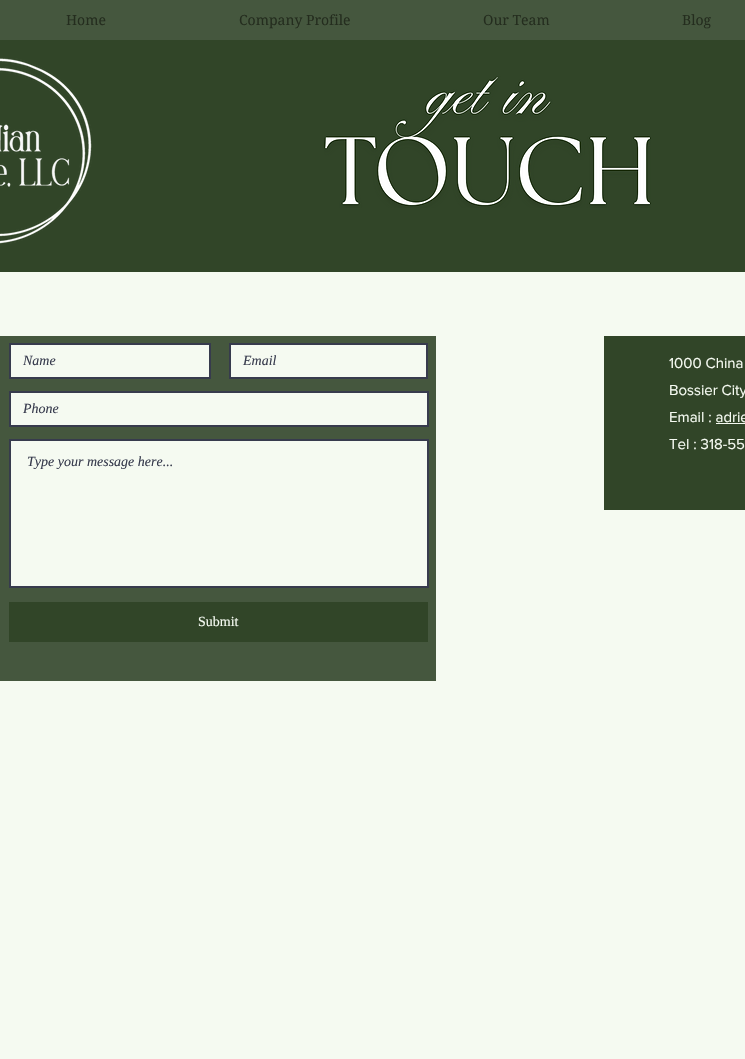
#include "include/core/SkBlurTypes.h"
#include "include/core/SkCanvas.h"
#include "include/core/SkData.h"
#include "include/core/SkFont.h"
#include "include/core/SkFontMgr.h"
#include "include/core/SkImage.h"
#include "include/core/SkMaskFilter.h"
#include "include/core/SkPaint.h"
#include "include/core/SkPathBuilder.h"
#include "include/core/SkTextBlob.h"
#include "include/effects/SkDashPathEffect.h"
#include "include/effects/SkGradientShader.h"
#include "include/utils/SkParsePath.h"

extern sk_sp<SkFontMgr> fontMgr;

static SkFont font(const char* family, int weight, float size, bool italic = false) {
    SkFontStyle style(weight, SkFontStyle::kNormal_Width,
        italic ? SkFontStyle::kItalic_Slant : SkFontStyle::kUpright_Slant);
    SkFont result(fontMgr->matchFamilyStyle(family, style), size);
    result.setSubpixel(true);
    return result;
}

static void drawLabel(SkCanvas* canvas, const char* s, float x, float y, const SkFont& font, SkColor color) {
    SkPaint ink(SkColor4f::FromColor(color));
    ink.setAntiAlias(true);
    canvas->drawString(s, x, y, font, ink);
}

static void fillRect(SkCanvas* canvas, float x, float y, float w, float h, SkColor color) {
    SkPaint ink(SkColor4f::FromColor(color));
    ink.setAntiAlias(true);
    canvas->drawRect(SkRect::MakeXYWH(x, y, w, h), ink);
}

static void drawPhoto(SkCanvas* canvas, const char* path, float x, float y, float w, float h) {
    auto image = SkImages::DeferredFromEncodedData(SkData::MakeFromFileName(path));
    canvas->drawImageRect(image, SkRect::MakeXYWH(x, y, w, h), SkSamplingOptions());
}

void draw(SkCanvas* canvas) {
    SkPaint paint;
    paint.setAntiAlias(true);
    canvas->clear(0xFFF5FAF1);
    fillRect(canvas, 0, 0, 745, 40, 0xFF45573E);
    SkFont font1 = font("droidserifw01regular", 400, 14);
    drawLabel(canvas, "Home", 66, 25, font1, 0xFF242D1E);
    drawLabel(canvas, "Company Profile", 239, 25, font1, 0xFF242D1E);
    drawLabel(canvas, "Our Team", 483, 25, font1, 0xFF242D1E);
    drawLabel(canvas, "Blog", 682, 25, font1, 0xFF242D1E);
    fillRect(canvas, 0, 40, 745, 232, 0xFF314528);
    drawPhoto(canvas, "assets/img1.png", 0, 58, 92, 186);
    drawPhoto(canvas, "assets/img2.png", 324, 76, 327, 132);
    fillRect(canvas, 0, 336, 436, 345, 0xFF45573E);
    paint.setColor(0xFFF5FAF1);
    canvas->drawRect(SkRect::MakeXYWH(10, 344, 200, 34), paint);
    paint.setStroke(true);
    paint.setStrokeWidth(2);
    paint.setColor(0xFF373B4D);
    canvas->drawRect(SkRect::MakeXYWH(10, 344, 200, 34), paint);
    SkFont font2 = font("Liberation Serif", 400, 14, true);
    drawLabel(canvas, "Name", 23, 365, font2, 0xFF373B4D);
    paint.setStroke(false);
    paint.setColor(0xFFF5FAF1);
    canvas->drawRect(SkRect::MakeXYWH(230, 344, 197, 34), paint);
    paint.setStroke(true);
    paint.setColor(0xFF373B4D);
    canvas->drawRect(SkRect::MakeXYWH(230, 344, 197, 34), paint);
    drawLabel(canvas, "Email", 243, 365, font2, 0xFF373B4D);
    paint.setStroke(false);
    paint.setColor(0xFFF5FAF1);
    canvas->drawRect(SkRect::MakeXYWH(10, 392, 418, 34), paint);
    paint.setStroke(true);
    paint.setColor(0xFF373B4D);
    canvas->drawRect(SkRect::MakeXYWH(10, 392, 418, 34), paint);
    drawLabel(canvas, "Phone", 23, 413, font2, 0xFF373B4D);
    paint.setStroke(false);
    paint.setColor(0xFFF5FAF1);
    canvas->drawRect(SkRect::MakeXYWH(10, 440, 418, 147), paint);
    paint.setStroke(true);
    paint.setColor(0xFF373B4D);
    canvas->drawRect(SkRect::MakeXYWH(10, 440, 418, 147), paint);
    drawLabel(canvas, "Type your message here...", 27, 466, font2, 0xFF373B4D);
    fillRect(canvas, 9, 602, 419, 40, 0xFF314528);
    SkFont font3 = font("Liberation Serif", 400, 14);
    drawLabel(canvas, "Submit", 198, 626, font3, 0xFFF5FAF1);
    fillRect(canvas, 604, 336, 141, 174, 0xFF314528);
    SkFont font4 = font("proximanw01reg", 400, 15);
    drawLabel(canvas, "1000 China", 669, 368, font4, 0xFFF5FAF1);
    drawLabel(canvas, "Bossier City", 669, 395, font4, 0xFFF5FAF1);
    drawLabel(canvas, "Email : adrie", 669, 422, font4, 0xFFF5FAF1);
    fillRect(canvas, 716, 423, 29, 1, 0xFFF5FAF1);
    drawLabel(canvas, "Tel : 318-55", 669, 449, font4, 0xFFF5FAF1);
}
